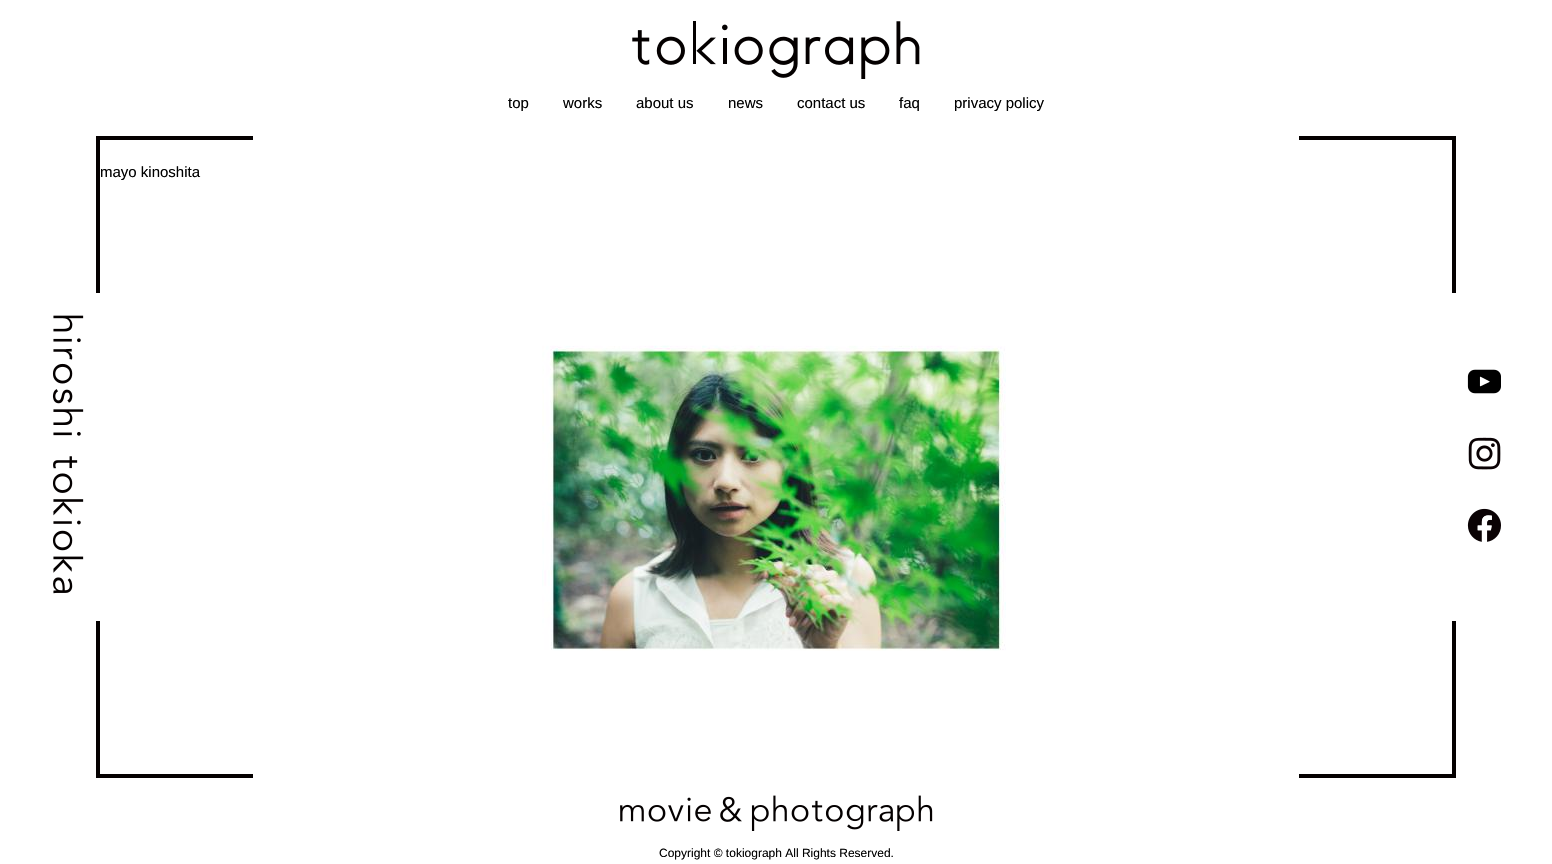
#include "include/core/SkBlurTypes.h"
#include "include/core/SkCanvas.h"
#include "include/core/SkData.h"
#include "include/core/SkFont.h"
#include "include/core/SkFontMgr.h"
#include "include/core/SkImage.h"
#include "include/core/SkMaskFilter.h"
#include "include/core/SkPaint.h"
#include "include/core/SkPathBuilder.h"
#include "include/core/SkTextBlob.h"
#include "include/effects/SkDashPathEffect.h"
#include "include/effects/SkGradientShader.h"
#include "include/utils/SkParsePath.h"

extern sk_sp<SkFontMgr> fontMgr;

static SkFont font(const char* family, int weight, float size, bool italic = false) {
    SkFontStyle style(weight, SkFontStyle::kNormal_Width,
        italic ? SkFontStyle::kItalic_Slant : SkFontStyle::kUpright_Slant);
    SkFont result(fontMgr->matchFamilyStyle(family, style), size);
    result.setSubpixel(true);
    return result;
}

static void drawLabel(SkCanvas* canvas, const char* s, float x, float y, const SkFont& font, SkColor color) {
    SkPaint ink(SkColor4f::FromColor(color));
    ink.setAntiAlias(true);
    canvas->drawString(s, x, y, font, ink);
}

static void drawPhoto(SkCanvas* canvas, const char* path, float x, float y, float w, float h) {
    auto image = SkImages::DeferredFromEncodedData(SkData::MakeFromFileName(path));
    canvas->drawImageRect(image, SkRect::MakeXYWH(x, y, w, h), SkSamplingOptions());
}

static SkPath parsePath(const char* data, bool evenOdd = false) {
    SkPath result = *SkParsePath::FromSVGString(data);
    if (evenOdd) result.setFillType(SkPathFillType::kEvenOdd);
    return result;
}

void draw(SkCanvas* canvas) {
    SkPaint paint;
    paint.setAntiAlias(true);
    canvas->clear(0xFFFFFFFF);
    drawPhoto(canvas, "assets/img1.png", 632, 21, 288, 58);
    SkFont font1 = font("Liberation Sans", 400, 15);
    drawLabel(canvas, "top", 508, 108, font1, 0xFF000000);
    drawLabel(canvas, "works", 563, 108, font1, 0xFF000000);
    drawLabel(canvas, "about us", 636, 108, font1, 0xFF000000);
    drawLabel(canvas, "news", 728, 108, font1, 0xFF000000);
    drawLabel(canvas, "contact us", 797, 108, font1, 0xFF000000);
    drawLabel(canvas, "faq", 899, 108, font1, 0xFF000000);
    drawLabel(canvas, "privacy policy", 954, 108, font1, 0xFF000000);
    paint.setColor(0xFF040000);
    canvas->drawPath(parsePath("M100 293H96V136H253V140H100Z"), paint);
    canvas->drawPath(parsePath("M1299 140V136H1456V293H1452V140Z"), paint);
    drawLabel(canvas, "mayo kinoshita", 100, 177, font1, 0xFF000000);
    drawPhoto(canvas, "assets/img2.png", 542, 345, 464, 306);
    drawPhoto(canvas, "assets/img3.png", 52, 315, 32, 279);
    drawPhoto(canvas, "assets/img4.png", 1467, 369, 34, 25);
    drawPhoto(canvas, "assets/img5.png", 1468, 437, 33, 33);
    drawPhoto(canvas, "assets/img6.png", 1467, 508, 34, 34);
    canvas->drawPath(parsePath("M253 774V778H96V621H100V774Z"), paint);
    canvas->drawPath(parsePath("M1452 621H1456V778H1299V774H1452Z"), paint);
    drawPhoto(canvas, "assets/img7.png", 620, 795, 313, 36);
    SkFont font2 = font("Liberation Sans", 400, 12);
    drawLabel(canvas, "Copyright © tokiograph All Rights Reserved.", 659, 857, font2, 0xFF000000);
}
